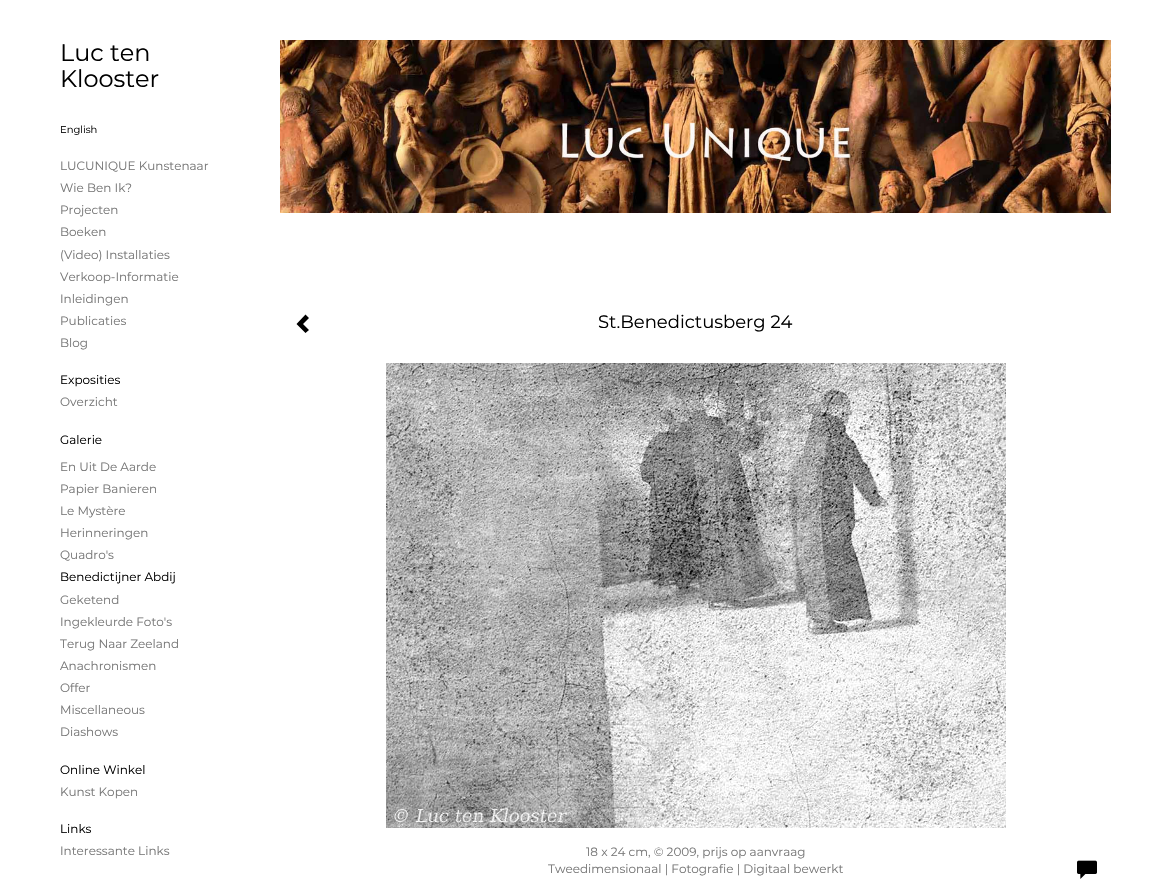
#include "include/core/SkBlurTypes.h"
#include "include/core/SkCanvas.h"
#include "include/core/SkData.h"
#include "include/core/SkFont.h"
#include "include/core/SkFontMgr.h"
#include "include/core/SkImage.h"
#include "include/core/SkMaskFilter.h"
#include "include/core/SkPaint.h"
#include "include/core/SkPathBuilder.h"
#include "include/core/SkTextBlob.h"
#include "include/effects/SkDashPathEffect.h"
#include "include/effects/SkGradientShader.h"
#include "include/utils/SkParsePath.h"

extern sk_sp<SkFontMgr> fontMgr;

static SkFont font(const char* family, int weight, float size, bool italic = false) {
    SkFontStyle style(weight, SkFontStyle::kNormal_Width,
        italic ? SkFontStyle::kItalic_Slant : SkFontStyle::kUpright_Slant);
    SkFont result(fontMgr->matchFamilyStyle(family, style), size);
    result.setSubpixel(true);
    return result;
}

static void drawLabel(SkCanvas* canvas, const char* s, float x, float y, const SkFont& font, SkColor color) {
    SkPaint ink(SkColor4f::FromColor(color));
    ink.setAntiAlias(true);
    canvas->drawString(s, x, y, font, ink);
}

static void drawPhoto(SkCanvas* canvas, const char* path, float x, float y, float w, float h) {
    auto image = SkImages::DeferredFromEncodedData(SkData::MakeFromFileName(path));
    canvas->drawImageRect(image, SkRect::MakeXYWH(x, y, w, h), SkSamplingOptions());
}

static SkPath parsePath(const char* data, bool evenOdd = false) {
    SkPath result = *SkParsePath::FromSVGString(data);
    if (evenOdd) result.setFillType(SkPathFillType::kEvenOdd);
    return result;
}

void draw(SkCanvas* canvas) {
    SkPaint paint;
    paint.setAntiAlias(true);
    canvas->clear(0xFFFFFFFF);
    drawPhoto(canvas, "assets/img1.png", 280, 40, 831, 173);
    SkFont font1 = font("Montserrat", 100, 24);
    drawLabel(canvas, "Luc ten", 60, 61, font1, 0xFF000000);
    drawLabel(canvas, "Klooster", 60, 87, font1, 0xFF000000);
    SkFont font2 = font("Montserrat", 100, 10);
    drawLabel(canvas, "English", 60, 133, font2, 0xFF000000);
    SkFont font3 = font("Montserrat", 100, 12);
    drawLabel(canvas, "LUCUNIQUE Kunstenaar", 60, 170, font3, 0xFF777777);
    drawLabel(canvas, "Wie Ben Ik?", 60, 192, font3, 0xFF777777);
    drawLabel(canvas, "Projecten", 60, 214, font3, 0xFF777777);
    drawLabel(canvas, "Boeken", 60, 236, font3, 0xFF777777);
    drawLabel(canvas, "(Video) Installaties", 60, 259, font3, 0xFF777777);
    drawLabel(canvas, "Verkoop-Informatie", 60, 281, font3, 0xFF777777);
    drawLabel(canvas, "Inleidingen", 60, 303, font3, 0xFF777777);
    drawLabel(canvas, "Publicaties", 60, 325, font3, 0xFF777777);
    drawLabel(canvas, "Blog", 60, 347, font3, 0xFF777777);
    drawLabel(canvas, "Exposities", 60, 384, font3, 0xFF000000);
    drawLabel(canvas, "Overzicht", 60, 406, font3, 0xFF777777);
    drawLabel(canvas, "Galerie", 60, 444, font3, 0xFF000000);
    drawLabel(canvas, "En Uit De Aarde", 60, 471, font3, 0xFF777777);
    drawLabel(canvas, "Papier Banieren", 60, 493, font3, 0xFF777777);
    drawLabel(canvas, "Le Mystère", 60, 515, font3, 0xFF777777);
    drawLabel(canvas, "Herinneringen", 60, 537, font3, 0xFF777777);
    drawLabel(canvas, "Quadro's", 60, 559, font3, 0xFF777777);
    drawLabel(canvas, "Benedictijner Abdij", 60, 581, font3, 0xFF000000);
    drawLabel(canvas, "Geketend", 60, 604, font3, 0xFF777777);
    drawLabel(canvas, "Ingekleurde Foto's", 60, 626, font3, 0xFF777777);
    drawLabel(canvas, "Terug Naar Zeeland", 60, 648, font3, 0xFF777777);
    drawLabel(canvas, "Anachronismen", 60, 670, font3, 0xFF777777);
    drawLabel(canvas, "Offer", 60, 692, font3, 0xFF777777);
    drawLabel(canvas, "Miscellaneous", 60, 714, font3, 0xFF777777);
    drawLabel(canvas, "Diashows", 60, 736, font3, 0xFF777777);
    drawLabel(canvas, "Online Winkel", 60, 774, font3, 0xFF000000);
    drawLabel(canvas, "Kunst Kopen", 60, 796, font3, 0xFF777777);
    drawLabel(canvas, "Links", 60, 833, font3, 0xFF000000);
    drawLabel(canvas, "Interessante Links", 60, 855, font3, 0xFF777777);
    paint.setColor(0xFF000000);
    canvas->drawPath(parsePath("M309 318L303 324L309 330L305.5 333L296.5 324L305.5 314.5Z"), paint);
    SkFont font4 = font("Montserrat", 100, 18);
    drawLabel(canvas, "St.Benedictusberg 24", 598, 328, font4, 0xFF000000);
    drawPhoto(canvas, "assets/img2.png", 386, 363, 620, 465);
    drawLabel(canvas, "18 x 24 cm, © 2009, prijs op aanvraag", 586, 856, font3, 0xFF777777);
    drawLabel(canvas, "Tweedimensionaal | Fotografie | Digitaal bewerkt", 548, 873, font3, 0xFF777777);
    drawPhoto(canvas, "assets/img3.png", 1077, 860, 20, 19);
}
